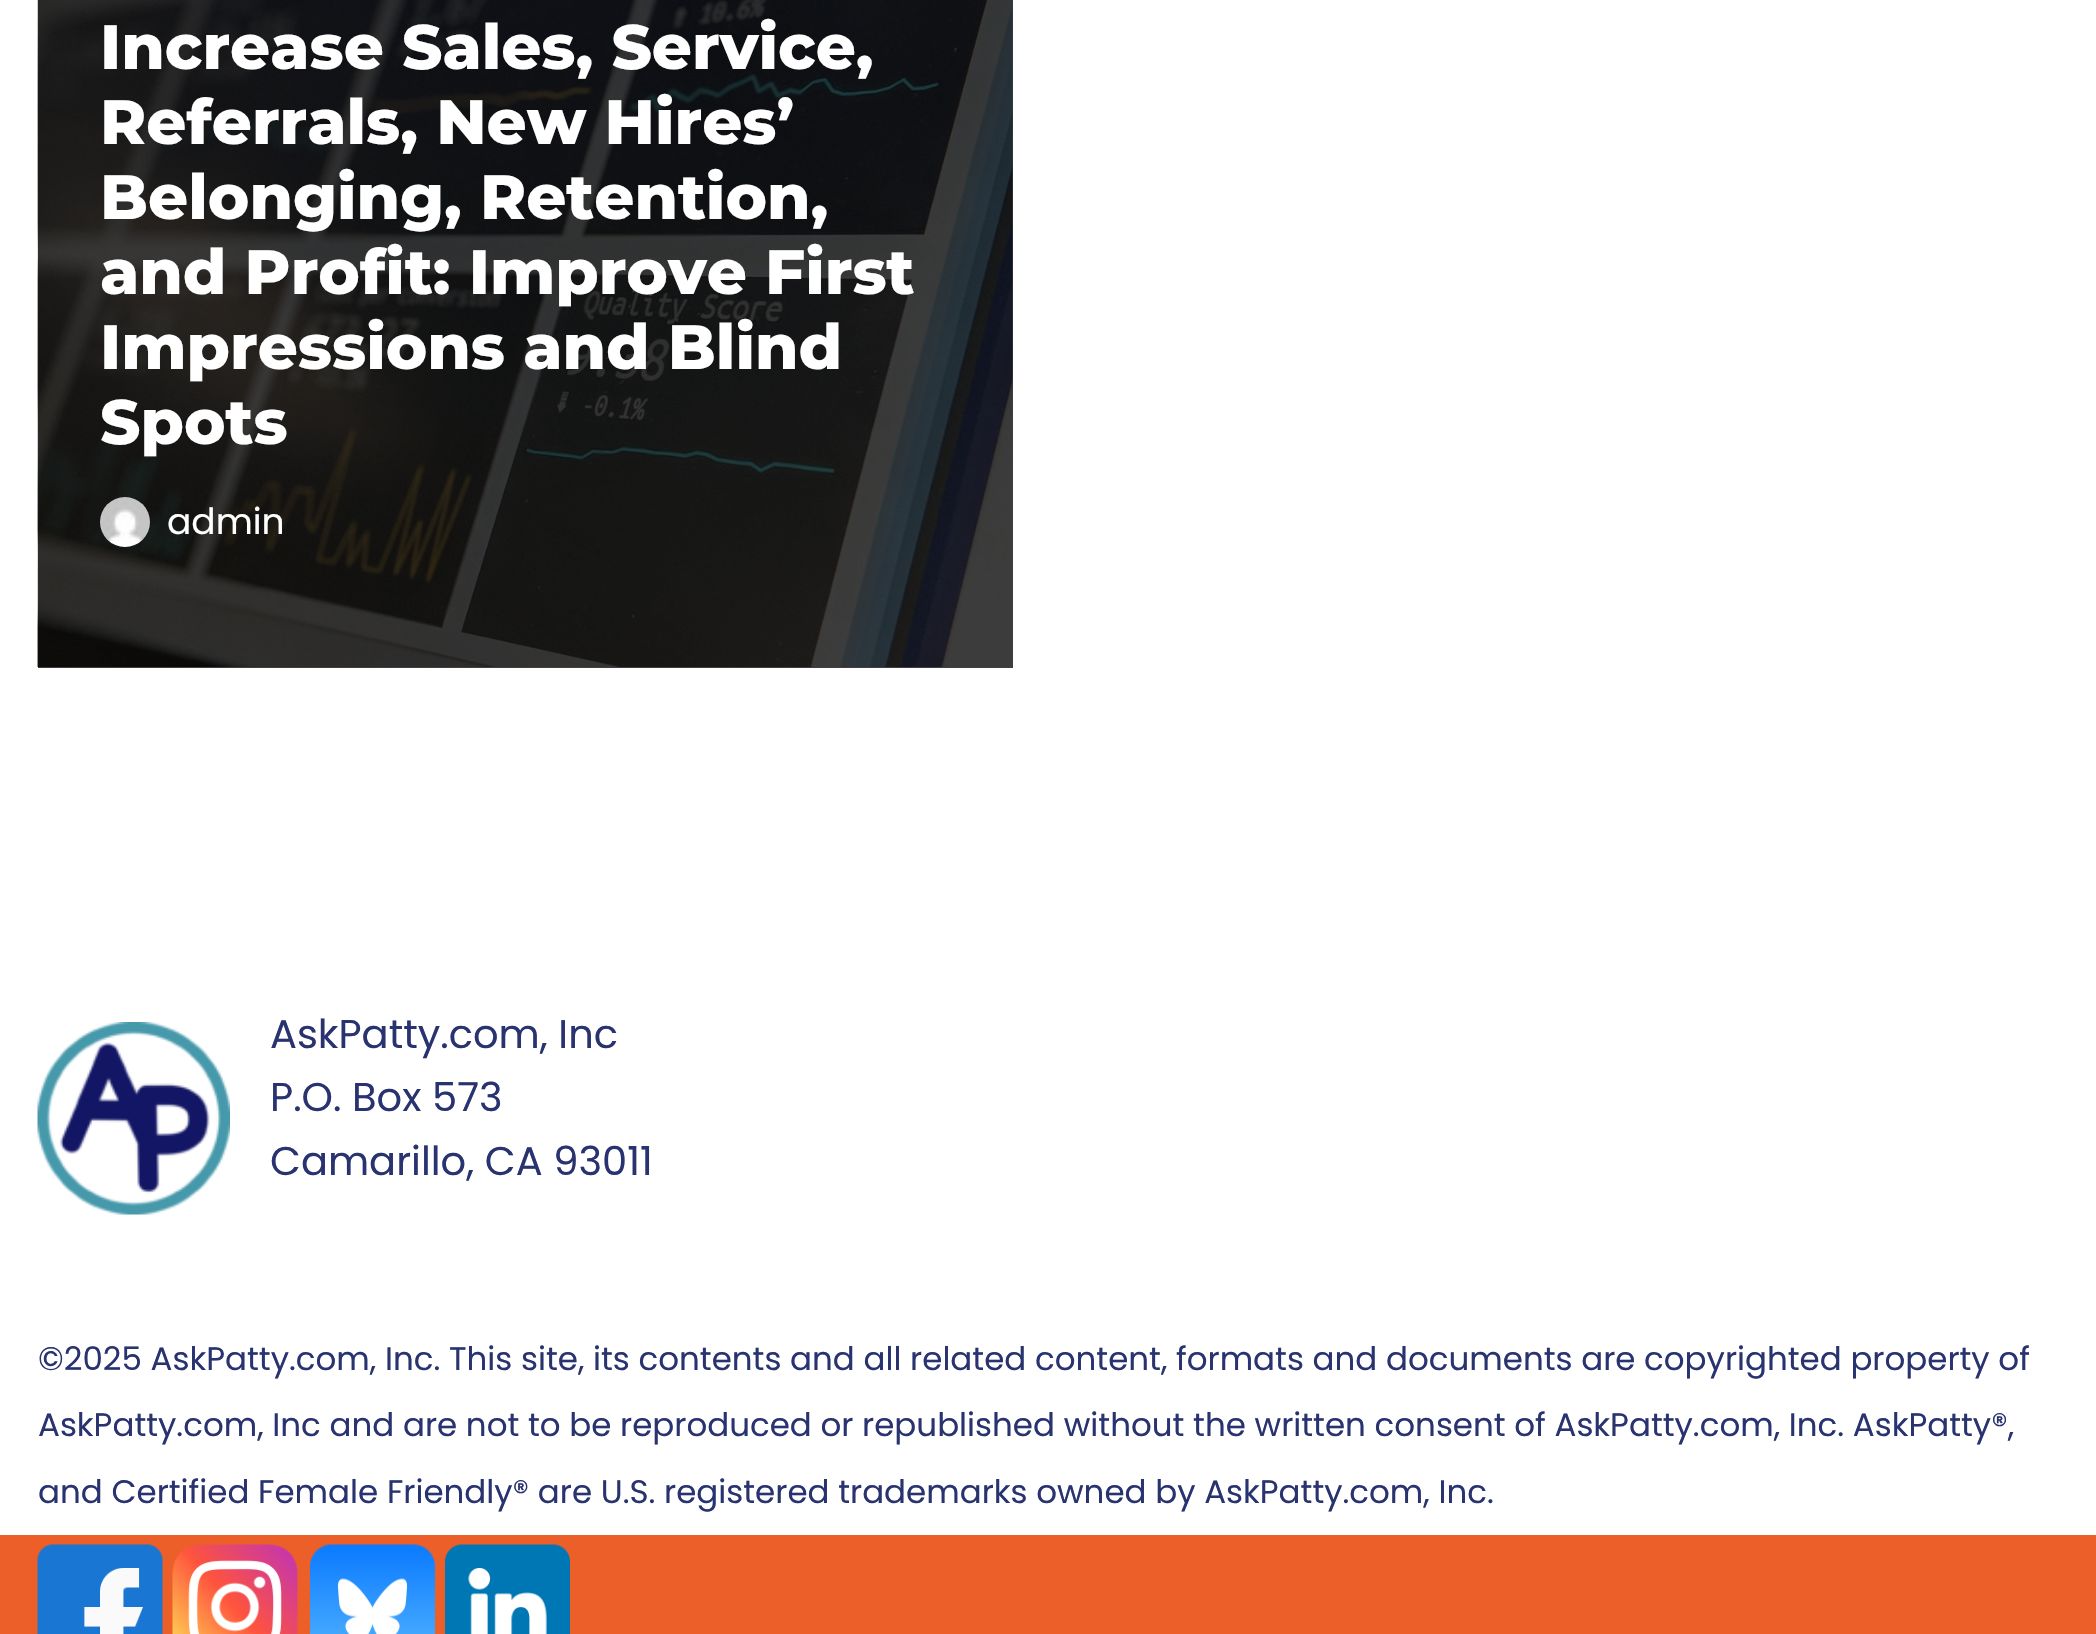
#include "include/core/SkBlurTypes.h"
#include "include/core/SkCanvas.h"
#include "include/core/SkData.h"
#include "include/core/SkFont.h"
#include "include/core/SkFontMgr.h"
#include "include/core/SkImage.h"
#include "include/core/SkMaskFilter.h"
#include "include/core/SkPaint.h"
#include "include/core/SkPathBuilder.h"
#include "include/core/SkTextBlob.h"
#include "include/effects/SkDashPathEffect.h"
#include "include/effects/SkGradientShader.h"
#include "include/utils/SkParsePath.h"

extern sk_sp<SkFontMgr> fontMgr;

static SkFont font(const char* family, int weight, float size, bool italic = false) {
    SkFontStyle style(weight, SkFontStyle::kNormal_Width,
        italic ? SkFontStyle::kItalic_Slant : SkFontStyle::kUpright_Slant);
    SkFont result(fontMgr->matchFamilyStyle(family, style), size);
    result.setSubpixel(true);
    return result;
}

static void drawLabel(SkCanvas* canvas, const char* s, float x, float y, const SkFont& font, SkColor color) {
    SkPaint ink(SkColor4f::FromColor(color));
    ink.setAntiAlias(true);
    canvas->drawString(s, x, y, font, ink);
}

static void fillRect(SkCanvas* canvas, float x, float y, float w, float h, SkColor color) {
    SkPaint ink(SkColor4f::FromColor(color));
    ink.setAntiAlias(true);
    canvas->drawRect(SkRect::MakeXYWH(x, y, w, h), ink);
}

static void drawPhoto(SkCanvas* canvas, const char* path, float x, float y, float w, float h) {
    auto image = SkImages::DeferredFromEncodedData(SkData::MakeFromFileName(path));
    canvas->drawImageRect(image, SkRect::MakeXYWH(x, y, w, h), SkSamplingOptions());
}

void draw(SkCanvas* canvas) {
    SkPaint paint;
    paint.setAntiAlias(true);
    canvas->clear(0xFFFFFFFF);
    fillRect(canvas, 38, 0, 975, 668, 0xFF404040);
    drawPhoto(canvas, "assets/img1.png", 37, 0, 976, 667);
    SkFont font1 = font("Montserrat", 800, 62.5f);
    drawLabel(canvas, "Increase Sales, Service,", 100, 69, font1, 0xFFFFFFFF);
    drawLabel(canvas, "Referrals, New Hires’", 100, 144, font1, 0xFFFFFFFF);
    drawLabel(canvas, "Belonging, Retention,", 100, 219, font1, 0xFFFFFFFF);
    drawLabel(canvas, "and Profit: Improve First", 100, 294, font1, 0xFFFFFFFF);
    drawLabel(canvas, "Impressions and Blind", 100, 369, font1, 0xFFFFFFFF);
    drawLabel(canvas, "Spots", 100, 444, font1, 0xFFFFFFFF);
    drawPhoto(canvas, "assets/img2.png", 100, 497, 50, 50);
    SkFont font2 = font("Poppins", 400, 36);
    drawLabel(canvas, "admin", 167, 534, font2, 0xFFFFFFFF);
    drawPhoto(canvas, "assets/img3.png", 37, 1022, 193, 193);
    SkFont font3 = font("Poppins", 400, 40);
    drawLabel(canvas, "AskPatty.com, Inc", 270, 1048, font3, 0xFF293370);
    drawLabel(canvas, "P.O. Box 573", 270, 1111, font3, 0xFF293370);
    drawLabel(canvas, "Camarillo, CA 93011", 270, 1175, font3, 0xFF293370);
    SkFont font4 = font("Poppins", 400, 32.5f);
    drawLabel(canvas, "©2025 AskPatty.com, Inc. This site, its contents and all related content, formats and documents are copyrighted property of", 38, 1370, font4, 0xFF293370);
    drawLabel(canvas, "AskPatty.com, Inc and are not to be reproduced or republished without the written consent of AskPatty.com, Inc. AskPatty®,", 38, 1436, font4, 0xFF293370);
    drawLabel(canvas, "and Certified Female Friendly® are U.S. registered trademarks owned by AskPatty.com, Inc.", 38, 1503, font4, 0xFF293370);
    fillRect(canvas, 0, 1535, 2096, 99, 0xFFEC5F28);
    drawPhoto(canvas, "assets/img4.png", 37, 1544, 126, 90);
    drawPhoto(canvas, "assets/img5.png", 172, 1544, 126, 90);
    drawPhoto(canvas, "assets/img6.png", 310, 1544, 125, 90);
    drawPhoto(canvas, "assets/img7.png", 445, 1544, 125, 90);
}
